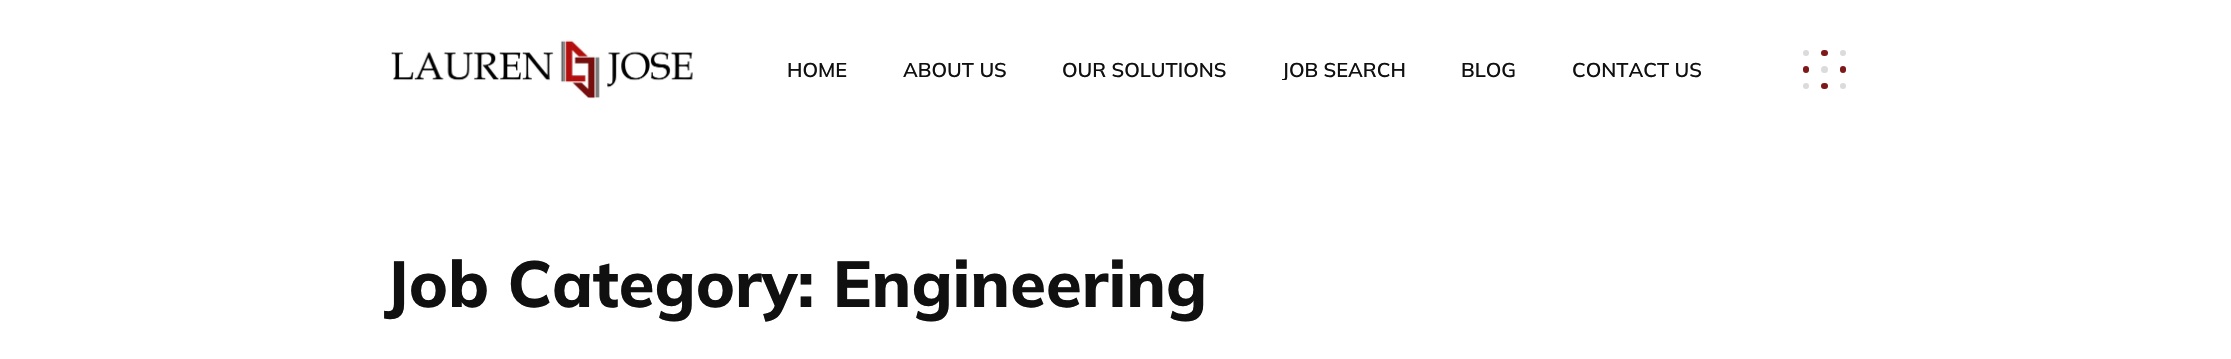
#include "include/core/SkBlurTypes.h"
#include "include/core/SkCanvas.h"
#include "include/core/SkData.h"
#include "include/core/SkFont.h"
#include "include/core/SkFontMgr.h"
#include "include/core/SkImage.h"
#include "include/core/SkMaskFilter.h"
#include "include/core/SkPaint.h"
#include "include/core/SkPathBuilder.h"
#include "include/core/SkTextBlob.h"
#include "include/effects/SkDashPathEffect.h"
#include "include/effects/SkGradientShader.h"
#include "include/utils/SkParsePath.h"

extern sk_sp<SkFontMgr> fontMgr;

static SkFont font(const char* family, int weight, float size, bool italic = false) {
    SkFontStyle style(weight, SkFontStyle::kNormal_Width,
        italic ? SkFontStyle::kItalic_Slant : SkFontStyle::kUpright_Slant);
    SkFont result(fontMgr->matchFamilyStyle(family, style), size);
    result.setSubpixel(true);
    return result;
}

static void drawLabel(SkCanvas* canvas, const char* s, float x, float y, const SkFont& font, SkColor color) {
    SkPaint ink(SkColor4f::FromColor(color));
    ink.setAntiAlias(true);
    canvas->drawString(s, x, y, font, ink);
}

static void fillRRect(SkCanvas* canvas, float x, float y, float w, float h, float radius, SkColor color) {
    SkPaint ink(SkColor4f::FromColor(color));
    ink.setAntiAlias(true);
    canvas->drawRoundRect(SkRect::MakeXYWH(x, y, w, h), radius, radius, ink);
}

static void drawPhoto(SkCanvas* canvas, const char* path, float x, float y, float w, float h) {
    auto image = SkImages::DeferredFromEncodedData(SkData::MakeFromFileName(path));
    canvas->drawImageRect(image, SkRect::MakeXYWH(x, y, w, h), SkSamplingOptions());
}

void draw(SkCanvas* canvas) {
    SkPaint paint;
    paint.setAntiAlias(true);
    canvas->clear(0xFFFFFFFF);
    drawPhoto(canvas, "assets/img1.png", 391, 39, 302, 60);
    SkFont font1 = font("Mulish", 600, 20);
    drawLabel(canvas, "HOME", 787, 77, font1, 0xFF111010);
    drawLabel(canvas, "ABOUT US", 903, 77, font1, 0xFF111010);
    drawLabel(canvas, "OUR SOLUTIONS", 1062, 77, font1, 0xFF111010);
    canvas->save();
    canvas->clipRect(SkRect::MakeXYWH(1259, 60, 170, 20));
    drawLabel(canvas, "JOB SEARCH", 1282, 77, font1, 0xFF111010);
    canvas->restore();
    drawLabel(canvas, "BLOG", 1461, 77, font1, 0xFF111010);
    drawLabel(canvas, "CONTACT US", 1572, 77, font1, 0xFF111010);
    paint.setColor(0xFFDBDBDB);
    canvas->drawCircle(1806, 53, 3, paint);
    fillRRect(canvas, 1821, 50, 7, 6, 3, 0xFF7E1919);
    canvas->drawCircle(1843, 53, 3, paint);
    fillRRect(canvas, 1803, 66, 6, 7, 3, 0xFF7E1919);
    canvas->drawCircle(1824.5f, 69.5f, 3.5f, paint);
    fillRRect(canvas, 1840, 66, 6, 7, 3, 0xFF7E1919);
    canvas->drawCircle(1806, 86, 3, paint);
    fillRRect(canvas, 1821, 83, 7, 6, 3, 0xFF7E1919);
    canvas->drawCircle(1843, 86, 3, paint);
    SkFont font2 = font("Mulish", 800, 65);
    drawLabel(canvas, "Job Category: Engineering", 384, 307, font2, 0xFF111010);
}
